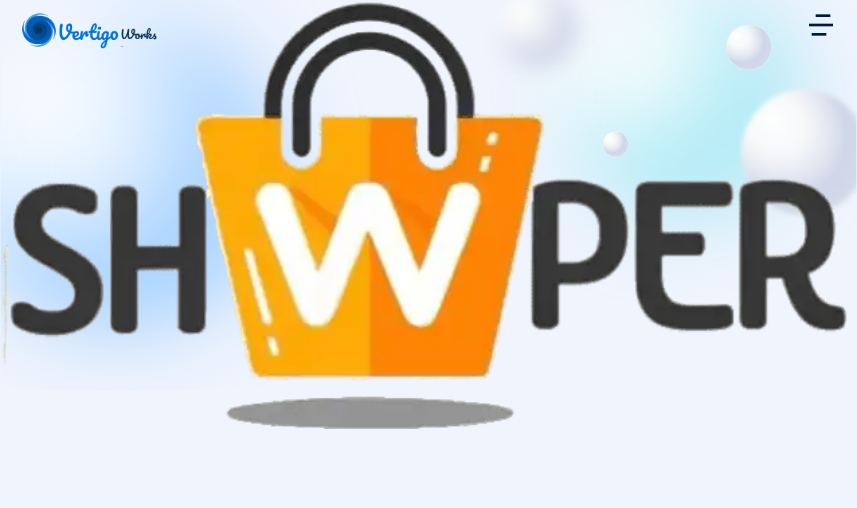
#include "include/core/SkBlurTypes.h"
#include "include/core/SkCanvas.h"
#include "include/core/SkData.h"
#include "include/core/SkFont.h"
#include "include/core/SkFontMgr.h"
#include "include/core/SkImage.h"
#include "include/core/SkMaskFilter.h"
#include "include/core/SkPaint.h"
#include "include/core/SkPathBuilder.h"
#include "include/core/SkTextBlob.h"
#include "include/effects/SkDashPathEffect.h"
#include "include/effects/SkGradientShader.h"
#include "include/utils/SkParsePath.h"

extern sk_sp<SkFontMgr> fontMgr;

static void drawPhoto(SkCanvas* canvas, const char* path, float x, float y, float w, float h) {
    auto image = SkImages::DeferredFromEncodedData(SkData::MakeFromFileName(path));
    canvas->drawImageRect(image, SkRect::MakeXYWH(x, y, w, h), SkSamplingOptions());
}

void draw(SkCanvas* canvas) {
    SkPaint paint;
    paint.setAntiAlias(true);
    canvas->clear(0xFFEFF4FD);
    drawPhoto(canvas, "assets/img1.png", 0, 0, 857, 390);
    drawPhoto(canvas, "assets/img2.png", 2, 2, 845, 427);
    drawPhoto(canvas, "assets/img3.png", 22, 13, 135, 36);
    drawPhoto(canvas, "assets/img4.png", 809, 14, 24, 22);
}
